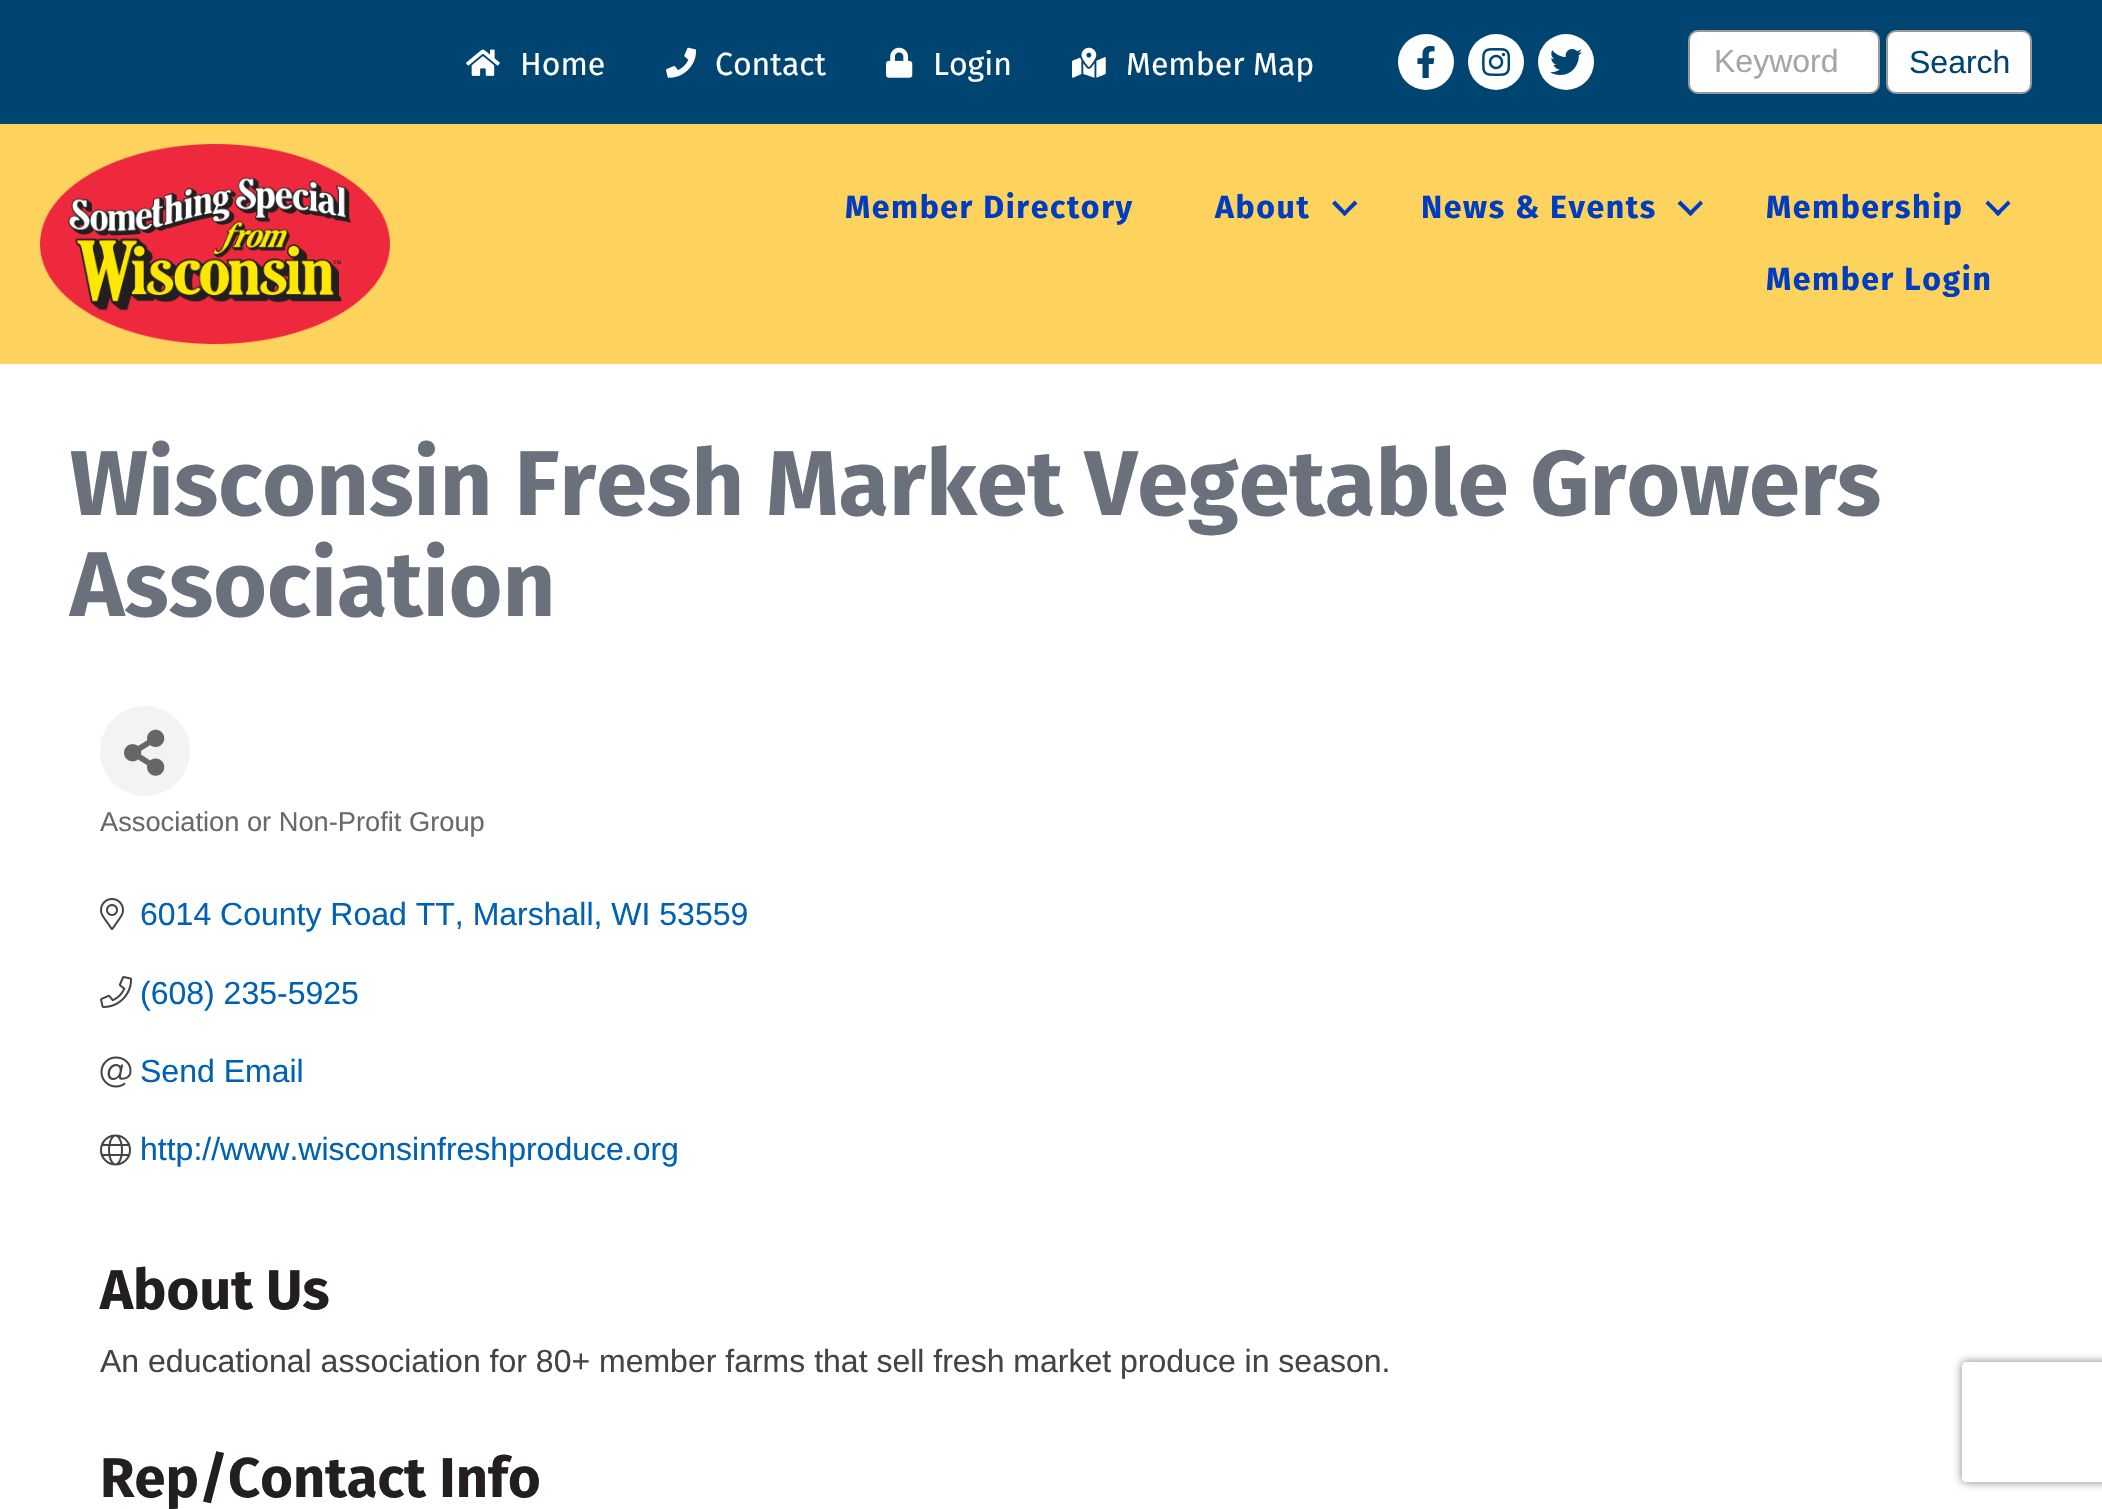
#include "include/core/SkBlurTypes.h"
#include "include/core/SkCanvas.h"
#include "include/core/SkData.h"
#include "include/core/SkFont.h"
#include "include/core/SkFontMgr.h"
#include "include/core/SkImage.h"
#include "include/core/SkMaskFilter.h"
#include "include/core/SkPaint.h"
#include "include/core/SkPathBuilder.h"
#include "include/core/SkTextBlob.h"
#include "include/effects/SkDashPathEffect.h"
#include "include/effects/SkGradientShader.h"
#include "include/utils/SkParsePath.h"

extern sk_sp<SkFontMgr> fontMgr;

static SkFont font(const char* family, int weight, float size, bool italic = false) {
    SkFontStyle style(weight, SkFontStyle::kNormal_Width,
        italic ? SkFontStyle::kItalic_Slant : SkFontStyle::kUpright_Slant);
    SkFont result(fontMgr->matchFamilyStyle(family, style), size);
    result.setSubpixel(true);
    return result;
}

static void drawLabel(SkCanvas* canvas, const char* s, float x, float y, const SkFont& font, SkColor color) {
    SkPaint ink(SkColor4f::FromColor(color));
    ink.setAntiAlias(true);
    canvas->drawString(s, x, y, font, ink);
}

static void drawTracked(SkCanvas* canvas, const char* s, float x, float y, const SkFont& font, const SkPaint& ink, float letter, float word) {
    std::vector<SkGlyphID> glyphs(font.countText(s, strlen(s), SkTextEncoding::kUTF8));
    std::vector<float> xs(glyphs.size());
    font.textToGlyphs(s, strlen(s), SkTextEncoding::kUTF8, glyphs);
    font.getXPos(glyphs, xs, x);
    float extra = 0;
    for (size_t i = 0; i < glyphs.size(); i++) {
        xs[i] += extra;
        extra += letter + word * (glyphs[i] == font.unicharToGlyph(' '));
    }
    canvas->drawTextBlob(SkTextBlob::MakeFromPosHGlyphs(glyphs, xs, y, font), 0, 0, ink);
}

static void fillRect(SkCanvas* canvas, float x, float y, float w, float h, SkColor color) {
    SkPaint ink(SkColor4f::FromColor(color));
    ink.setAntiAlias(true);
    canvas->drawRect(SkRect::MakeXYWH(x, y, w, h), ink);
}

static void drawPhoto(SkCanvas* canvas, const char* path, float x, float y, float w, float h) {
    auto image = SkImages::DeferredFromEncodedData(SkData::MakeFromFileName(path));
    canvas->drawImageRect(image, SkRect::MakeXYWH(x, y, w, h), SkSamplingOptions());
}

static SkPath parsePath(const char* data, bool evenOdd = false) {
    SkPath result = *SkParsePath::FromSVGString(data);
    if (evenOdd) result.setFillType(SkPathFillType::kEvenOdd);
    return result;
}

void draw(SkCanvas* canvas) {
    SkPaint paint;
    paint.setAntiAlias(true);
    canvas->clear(0xFFFFFFFF);
    fillRect(canvas, 0, 0, 2102, 124, 0xFF004472);
    drawPhoto(canvas, "assets/img1.png", 466, 49, 34, 27);
    SkFont font1 = font("Fira Sans", 400, 32);
    drawLabel(canvas, "Home", 520, 75, font1, 0xFFFFFFFF);
    drawPhoto(canvas, "assets/img2.png", 666, 47, 31, 31);
    drawLabel(canvas, "Contact", 715, 75, font1, 0xFFFFFFFF);
    drawPhoto(canvas, "assets/img3.png", 886, 47, 27, 31);
    drawLabel(canvas, "Login", 933, 75, font1, 0xFFFFFFFF);
    drawPhoto(canvas, "assets/img4.png", 1072, 47, 34, 31);
    drawLabel(canvas, "Member Map", 1126, 75, font1, 0xFFFFFFFF);
    paint.setColor(0xFFFFFFFF);
    canvas->drawCircle(1426, 62, 28, paint);
    drawPhoto(canvas, "assets/img5.png", 1417, 46, 18, 32);
    canvas->drawCircle(1496, 62, 28, paint);
    drawPhoto(canvas, "assets/img6.png", 1482, 48, 29, 28);
    canvas->drawCircle(1566, 62, 28, paint);
    drawPhoto(canvas, "assets/img7.png", 1550, 49, 32, 26);
    canvas->drawRoundRect(SkRect::MakeXYWH(1689, 31, 190, 62), 9, 9, paint);
    paint.setStroke(true);
    paint.setStrokeWidth(2);
    paint.setColor(0xFF999999);
    canvas->drawRoundRect(SkRect::MakeXYWH(1689, 31, 190, 62), 9, 9, paint);
    SkFont font2 = font("Liberation Sans", 400, 32);
    drawLabel(canvas, "Keyword", 1714, 72, font2, 0xFFA7A5A6);
    paint.setStroke(false);
    paint.setColor(0xFFFFFFFF);
    canvas->drawRoundRect(SkRect::MakeXYWH(1887, 31, 144, 62), 9, 9, paint);
    paint.setStroke(true);
    paint.setColor(0xFF999999);
    canvas->drawRoundRect(SkRect::MakeXYWH(1887, 31, 144, 62), 9, 9, paint);
    drawLabel(canvas, "Search", 1909, 73, font2, 0xFF014472);
    fillRect(canvas, 0, 124, 2102, 240, 0xFFFDD35D);
    drawPhoto(canvas, "assets/img8.png", 40, 144, 350, 200);
    SkFont font3 = font("Fira Sans", 700, 32);
    paint.setStroke(false);
    paint.setColor(0xFF003CBF);
    drawTracked(canvas, "Member Directory", 845, 218, font3, paint, 1.6f, 0);
    drawTracked(canvas, "About", 1215, 218, font3, paint, 1.6f, 0);
    canvas->drawPath(parsePath("M1354.5 200.5L1357.5 203.5L1344.5 216L1342 213.5Z"), paint);
    canvas->drawPath(parsePath("M1335 200.5L1347.5 213.5L1344.5 216L1332 203.5Z"), paint);
    drawTracked(canvas, "News & Events", 1421, 218, font3, paint, 1.6f, 0);
    canvas->drawPath(parsePath("M1700.5 200.5L1703 203.5L1690.5 216L1687.5 213.5Z"), paint);
    canvas->drawPath(parsePath("M1680.5 200.5L1693.5 213.5L1690.5 216L1677.5 203.5Z"), paint);
    drawTracked(canvas, "Membership", 1766, 218, font3, paint, 1.6f, 0);
    canvas->drawPath(parsePath("M2008 200.5L2010.5 203.5L1998 216L1995 213.5Z"), paint);
    canvas->drawPath(parsePath("M1988 200.5L2001 213.5L1998 216L1985.5 203.5Z"), paint);
    drawTracked(canvas, "Member Login", 1766, 290, font3, paint, 1.6f, 0);
    SkFont font4 = font("Fira Sans", 700, 92);
    drawLabel(canvas, "Wisconsin Fresh Market Vegetable Growers", 70, 515, font4, 0xFF6A707C);
    drawLabel(canvas, "Association", 70, 616, font4, 0xFF6A707C);
    paint.setColor(0xFFF3F3F3);
    canvas->drawCircle(145, 751, 45, paint);
    drawPhoto(canvas, "assets/img9.png", 124, 729, 41, 47);
    SkFont font5 = font("Liberation Sans", 400, 27.25f);
    drawLabel(canvas, "Association or Non-Profit Group", 100, 831, font5, 0xFF696969);
    drawPhoto(canvas, "assets/img10.png", 100, 898, 24, 32);
    drawLabel(canvas, "6014 County Road TT, Marshall, WI 53559", 140, 925, font2, 0xFF0061B5);
    drawPhoto(canvas, "assets/img11.png", 100, 976, 33, 32);
    drawLabel(canvas, "(608) 235-5925", 140, 1004, font2, 0xFF0061B5);
    drawPhoto(canvas, "assets/img12.png", 100, 1056, 32, 32);
    drawLabel(canvas, "Send Email", 140, 1082, font2, 0xFF0061B5);
    drawPhoto(canvas, "assets/img13.png", 100, 1134, 31, 32);
    drawLabel(canvas, "http://www.wisconsinfreshproduce.org", 140, 1160, font2, 0xFF0061B5);
    SkFont font6 = font("Fira Sans", 700, 56);
    drawLabel(canvas, "About Us", 100, 1309, font6, 0xFF231F20);
    drawLabel(canvas, "An educational association for 80+ member farms that sell fresh market produce in season.", 100, 1372, font2, 0xFF444444);
    drawLabel(canvas, "Rep/Contact Info", 100, 1497, font6, 0xFF231F20);
    canvas->save();
    canvas->clipPath(parsePath("M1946 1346H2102V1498H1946ZM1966 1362H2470C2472 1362 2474 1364 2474 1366V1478C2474 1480 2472 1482 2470 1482H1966C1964 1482 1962 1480 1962 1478V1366C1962 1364 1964 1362 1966 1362Z", true), true);
    paint.setColor(0xFF808080);
    paint.setMaskFilter(SkMaskFilter::MakeBlur(kNormal_SkBlurStyle, 5));
    canvas->drawRoundRect(SkRect::MakeXYWH(1962, 1362, 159, 120), 4, 4, paint);
    paint.setMaskFilter(nullptr);
    canvas->restore();
}
